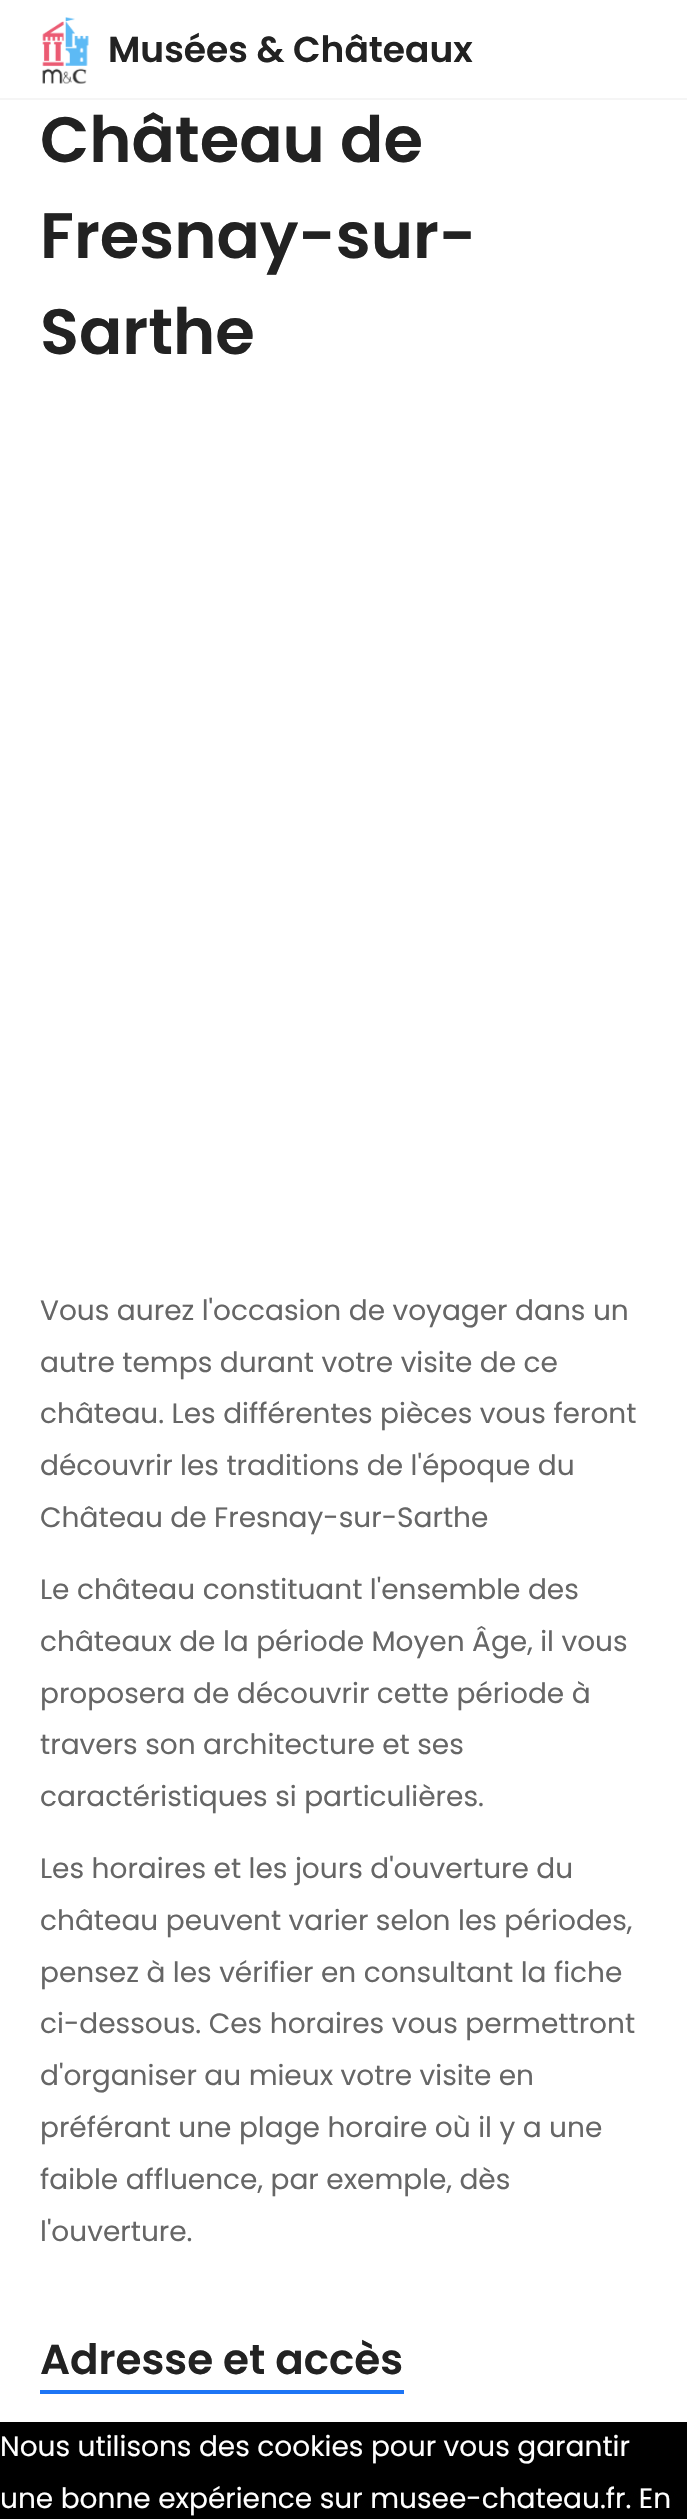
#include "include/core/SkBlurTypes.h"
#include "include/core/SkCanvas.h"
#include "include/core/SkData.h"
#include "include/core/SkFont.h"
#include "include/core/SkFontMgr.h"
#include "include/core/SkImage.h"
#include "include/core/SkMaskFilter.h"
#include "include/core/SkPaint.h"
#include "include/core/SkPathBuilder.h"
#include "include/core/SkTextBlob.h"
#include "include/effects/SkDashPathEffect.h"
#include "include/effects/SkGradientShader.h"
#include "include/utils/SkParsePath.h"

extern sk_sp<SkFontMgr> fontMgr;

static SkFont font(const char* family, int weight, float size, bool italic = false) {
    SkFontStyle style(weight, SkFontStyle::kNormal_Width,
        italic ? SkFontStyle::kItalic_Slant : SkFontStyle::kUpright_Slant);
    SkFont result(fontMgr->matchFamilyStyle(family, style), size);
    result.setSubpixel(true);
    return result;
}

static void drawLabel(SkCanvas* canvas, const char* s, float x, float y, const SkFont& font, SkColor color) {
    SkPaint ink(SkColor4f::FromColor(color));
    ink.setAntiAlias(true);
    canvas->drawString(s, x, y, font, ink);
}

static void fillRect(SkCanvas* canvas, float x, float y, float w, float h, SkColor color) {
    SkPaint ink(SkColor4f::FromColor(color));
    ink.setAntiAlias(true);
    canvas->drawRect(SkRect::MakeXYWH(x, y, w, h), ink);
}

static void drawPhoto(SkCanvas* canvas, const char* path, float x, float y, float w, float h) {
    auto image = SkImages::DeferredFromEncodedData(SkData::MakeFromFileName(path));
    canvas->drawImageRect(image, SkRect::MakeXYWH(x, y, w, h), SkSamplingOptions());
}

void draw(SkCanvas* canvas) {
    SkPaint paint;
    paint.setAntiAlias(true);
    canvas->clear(0xFFFFFFFF);
    fillRect(canvas, 0, 98, 687, 2, 0xFFF5F5F5);
    drawPhoto(canvas, "assets/img1.png", 42, 17, 47, 67);
    SkFont font1 = font("Poppins", 600, 36);
    drawLabel(canvas, "Musées & Châteaux", 108, 62, font1, 0xFF222222);
    SkFont font2 = font("Poppins", 600, 64);
    drawLabel(canvas, "Château de", 40, 162, font2, 0xFF222222);
    drawLabel(canvas, "Fresnay-sur-", 40, 258, font2, 0xFF222222);
    drawLabel(canvas, "Sarthe", 40, 354, font2, 0xFF222222);
    SkFont font3 = font("Poppins", 400, 28);
    drawLabel(canvas, "Vous aurez l'occasion de voyager dans un", 40, 1320, font3, 0xFF666666);
    drawLabel(canvas, "autre temps durant votre visite de ce", 40, 1372, font3, 0xFF666666);
    drawLabel(canvas, "château. Les différentes pièces vous feront", 40, 1423, font3, 0xFF666666);
    drawLabel(canvas, "découvrir les traditions de l'époque du", 40, 1475, font3, 0xFF666666);
    drawLabel(canvas, "Château de Fresnay-sur-Sarthe", 40, 1527, font3, 0xFF666666);
    drawLabel(canvas, "Le château constituant l'ensemble des", 40, 1599, font3, 0xFF666666);
    drawLabel(canvas, "châteaux de la période Moyen Âge, il vous", 40, 1651, font3, 0xFF666666);
    drawLabel(canvas, "proposera de découvrir cette période à", 40, 1703, font3, 0xFF666666);
    drawLabel(canvas, "travers son architecture et ses", 40, 1754, font3, 0xFF666666);
    drawLabel(canvas, "caractéristiques si particulières.", 40, 1806, font3, 0xFF666666);
    drawLabel(canvas, "Les horaires et les jours d'ouverture du", 40, 1878, font3, 0xFF666666);
    drawLabel(canvas, "château peuvent varier selon les périodes,", 40, 1930, font3, 0xFF666666);
    drawLabel(canvas, "pensez à les vérifier en consultant la fiche", 40, 1982, font3, 0xFF666666);
    drawLabel(canvas, "ci-dessous. Ces horaires vous permettront", 40, 2033, font3, 0xFF666666);
    drawLabel(canvas, "d'organiser au mieux votre visite en", 40, 2085, font3, 0xFF666666);
    drawLabel(canvas, "préférant une plage horaire où il y a une", 40, 2137, font3, 0xFF666666);
    drawLabel(canvas, "faible affluence, par exemple, dès", 40, 2189, font3, 0xFF666666);
    drawLabel(canvas, "l'ouverture.", 40, 2241, font3, 0xFF666666);
    SkFont font4 = font("Poppins", 600, 42);
    drawLabel(canvas, "Adresse et accès", 40, 2374, font4, 0xFF222222);
    fillRect(canvas, 40, 2390, 364, 4, 0xFF1D75F5);
    fillRect(canvas, 0, 2422, 687, 97, 0xFF000000);
    drawLabel(canvas, "Nous utilisons des cookies pour vous garantir", 0, 2456, font3, 0xFFFFFFFF);
    drawLabel(canvas, "une bonne expérience sur musee-chateau.fr. En", 0, 2508, font3, 0xFFFFFFFF);
}
